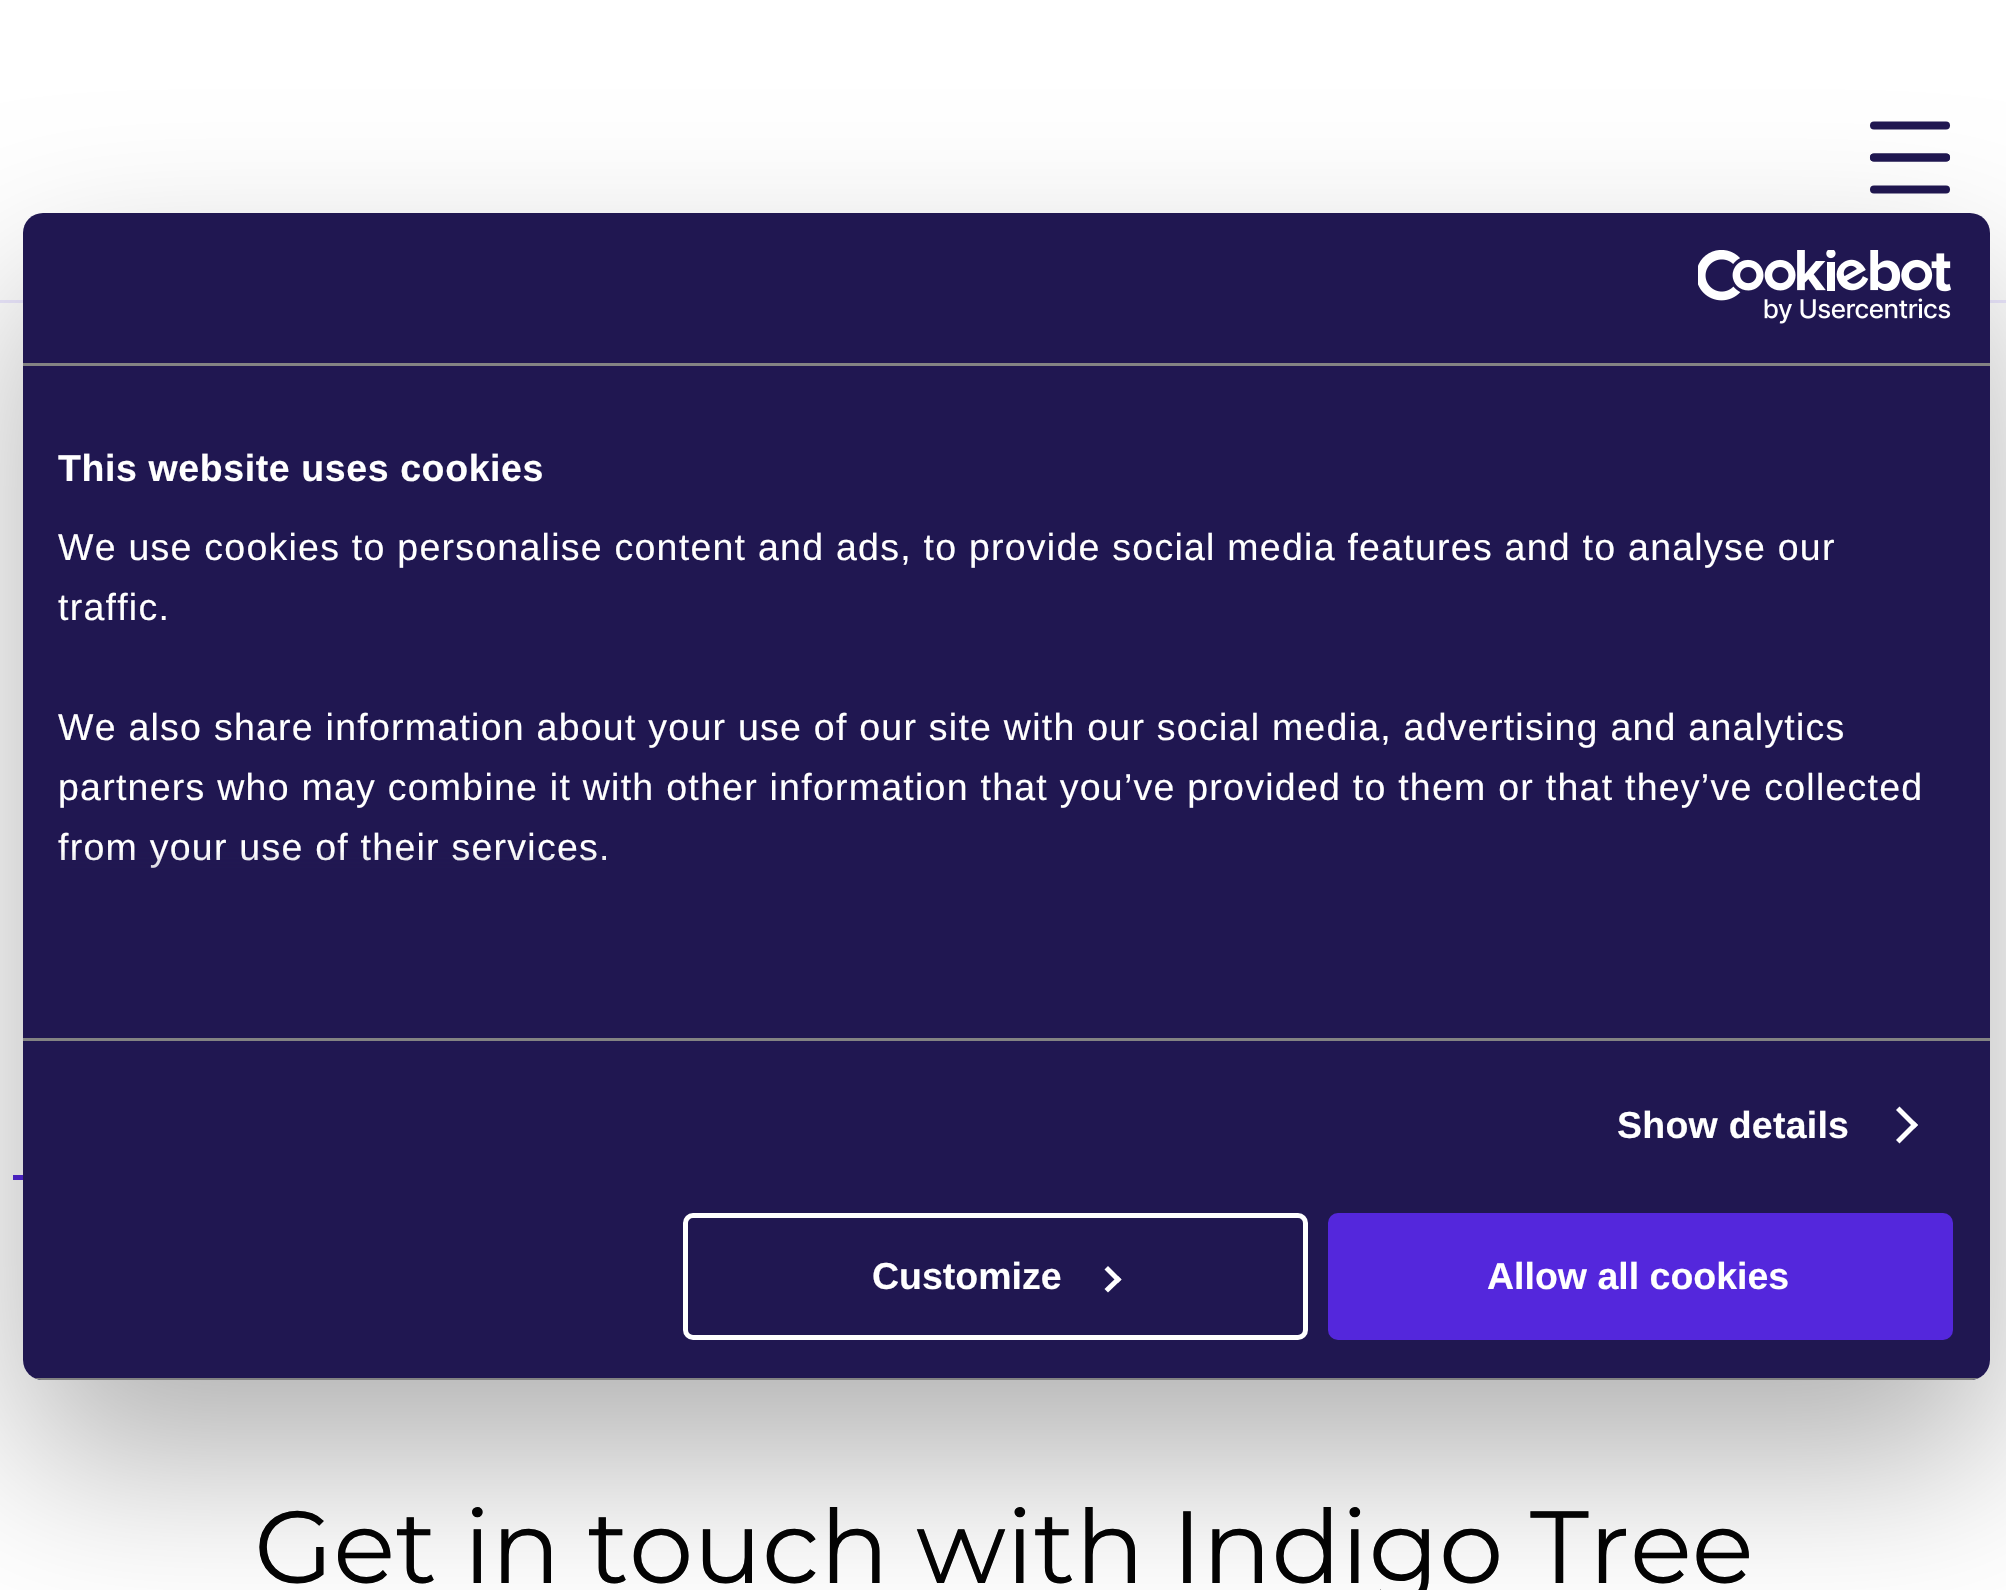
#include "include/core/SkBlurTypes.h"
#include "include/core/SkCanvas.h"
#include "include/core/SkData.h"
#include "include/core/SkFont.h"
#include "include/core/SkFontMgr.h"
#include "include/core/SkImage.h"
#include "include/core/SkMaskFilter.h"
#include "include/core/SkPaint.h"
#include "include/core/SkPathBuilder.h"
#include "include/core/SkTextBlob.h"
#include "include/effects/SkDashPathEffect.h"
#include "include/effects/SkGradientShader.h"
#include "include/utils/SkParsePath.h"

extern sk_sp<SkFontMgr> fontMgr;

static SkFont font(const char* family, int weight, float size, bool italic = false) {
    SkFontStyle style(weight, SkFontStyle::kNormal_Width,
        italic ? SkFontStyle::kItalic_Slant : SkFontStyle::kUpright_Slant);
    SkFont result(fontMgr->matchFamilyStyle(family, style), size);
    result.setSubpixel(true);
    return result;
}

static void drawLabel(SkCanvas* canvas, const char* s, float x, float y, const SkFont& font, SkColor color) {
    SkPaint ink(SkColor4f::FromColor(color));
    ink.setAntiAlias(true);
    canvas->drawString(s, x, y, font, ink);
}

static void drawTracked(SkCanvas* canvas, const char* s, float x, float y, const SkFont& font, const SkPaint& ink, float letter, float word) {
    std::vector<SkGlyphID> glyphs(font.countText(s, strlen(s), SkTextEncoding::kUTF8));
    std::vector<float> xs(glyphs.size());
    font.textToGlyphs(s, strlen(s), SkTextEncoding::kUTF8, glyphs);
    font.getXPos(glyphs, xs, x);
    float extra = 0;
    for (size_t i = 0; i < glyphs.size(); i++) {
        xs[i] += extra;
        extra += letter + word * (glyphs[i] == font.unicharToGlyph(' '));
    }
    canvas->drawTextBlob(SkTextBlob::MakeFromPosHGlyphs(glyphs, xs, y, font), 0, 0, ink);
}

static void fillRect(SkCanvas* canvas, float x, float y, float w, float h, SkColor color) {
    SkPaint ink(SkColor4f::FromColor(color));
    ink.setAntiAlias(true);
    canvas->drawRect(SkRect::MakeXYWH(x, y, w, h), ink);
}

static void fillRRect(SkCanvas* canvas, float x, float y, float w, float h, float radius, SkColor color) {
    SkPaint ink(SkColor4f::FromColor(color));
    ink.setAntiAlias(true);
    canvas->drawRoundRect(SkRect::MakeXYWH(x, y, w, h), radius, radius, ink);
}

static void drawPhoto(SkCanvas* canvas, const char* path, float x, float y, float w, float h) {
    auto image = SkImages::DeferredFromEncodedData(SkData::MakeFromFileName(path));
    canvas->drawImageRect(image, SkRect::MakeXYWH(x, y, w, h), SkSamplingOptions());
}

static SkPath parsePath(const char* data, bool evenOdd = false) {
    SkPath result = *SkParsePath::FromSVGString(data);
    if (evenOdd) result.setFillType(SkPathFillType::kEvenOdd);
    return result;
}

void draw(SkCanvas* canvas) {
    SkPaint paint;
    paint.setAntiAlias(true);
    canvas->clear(0xFFFFFFFF);
    fillRect(canvas, 0, 300, 2006, 3, 0xFFEDE8FF);
    paint.setStroke(true);
    paint.setStrokeWidth(8);
    paint.setStrokeCap(SkPaint::kRound_Cap);
    paint.setColor(0xFF201751);
    canvas->drawPath(parsePath("M1946 125.5H1874"), paint);
    canvas->drawPath(parsePath("M1946 157.5H1874"), paint);
    canvas->drawPath(parsePath("M1946 157.5H1874"), paint);
    canvas->drawPath(parsePath("M1946 189.5H1874"), paint);
    fillRect(canvas, 13, 1175, 10, 5, 0xFF5427DC);
    canvas->save();
    canvas->clipPath(parsePath("M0 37H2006V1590H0ZM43 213H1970C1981 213 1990 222 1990 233V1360C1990 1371 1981 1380 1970 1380H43C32 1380 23 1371 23 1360V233C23 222 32 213 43 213Z", true), true);
    paint.setStroke(false);
    paint.setColor(0x4D000000);
    paint.setMaskFilter(SkMaskFilter::MakeBlur(kNormal_SkBlurStyle, 85));
    canvas->drawRoundRect(SkRect::MakeXYWH(23, 293, 1967, 1167), 20, 20, paint);
    paint.setMaskFilter(nullptr);
    canvas->restore();
    fillRRect(canvas, 23, 213, 1967, 1167, 20, 0xFF201751);
    fillRect(canvas, 23, 363, 1967, 3, 0xFF838383);
    drawPhoto(canvas, "assets/img1.png", 1698, 250, 253, 74);
    fillRect(canvas, 23, 1038, 1967, 3, 0xFF838383);
    SkFont font1 = font("Liberation Sans", 700, 37.5f);
    paint.setColor(0xFFFFFFFF);
    drawTracked(canvas, "This website uses cookies", 58, 481, font1, paint, 0.6f, 0);
    SkFont font2 = font("Liberation Sans", 400, 37.5f);
    drawTracked(canvas, "We use cookies to personalise content and ads, to provide social media features and to analyse our", 58, 560, font2, paint, 1.25f, 0);
    drawTracked(canvas, "traffic.", 58, 620, font2, paint, 1.25f, 0);
    drawTracked(canvas, "We also share information about your use of our site with our social media, advertising and analytics", 58, 740, font2, paint, 1.25f, 0);
    drawTracked(canvas, "partners who may combine it with other information that you’ve provided to them or that they’ve collected", 58, 800, font2, paint, 1.25f, 0);
    drawTracked(canvas, "from your use of their services.", 58, 860, font2, paint, 1.25f, 0);
    {
        const SkColor colors[] = {0xFF201751, 0xCC201751, 0x00201751};
        const float stops[] = {0, 0.5f, 1};
        const SkPoint ends[] = {{989, 1036}, {989, 849}};
        paint.setShader(SkGradientShader::MakeLinear(ends, colors, stops, 3, SkTileMode::kClamp));
        paint.setAlpha(255);
    }
    canvas->drawRect(SkRect::MakeXYWH(60, 852, 546, 16), paint);
    paint.setShader(nullptr);
    paint.setColor(0xFFFFFFFF);
    drawTracked(canvas, "Show details", 1617, 1138, font1, paint, 0.25f, 0);
    canvas->drawPath(parsePath("M1899.5 1106.5L1918 1125L1914.5 1128.5L1896 1110Z"), paint);
    canvas->drawPath(parsePath("M1914.5 1121.5L1918 1125L1899.5 1143.5L1896 1140Z"), paint);
    canvas->save();
    canvas->clipPath(parsePath("M43 213H1970C1981 213 1990 222 1990 233V1360C1990 1371 1981 1380 1970 1380H43C32 1380 23 1371 23 1360V233C23 222 32 213 43 213Z"), true);
    fillRect(canvas, 34, 1378, 1945, 2, 0xFF838383);
    canvas->restore();
    paint.setStroke(true);
    paint.setStrokeWidth(5);
    paint.setStrokeCap(SkPaint::kButt_Cap);
    canvas->drawRoundRect(SkRect::MakeXYWH(685.5f, 1215.5f, 620, 122), 7.5f, 7.5f, paint);
    drawLabel(canvas, "Customize", 872, 1289, font1, 0xFFFFFFFF);
    paint.setStroke(false);
    canvas->drawPath(parsePath("M1108 1266L1121.5 1279.5L1118 1283L1104.5 1269.5Z"), paint);
    canvas->drawPath(parsePath("M1118 1276L1121.5 1279.5L1108 1292.5L1104.5 1289Z"), paint);
    paint.setColor(0xFF5427DC);
    canvas->drawRoundRect(SkRect::MakeXYWH(1330.5f, 1215.5f, 620, 122), 7.5f, 7.5f, paint);
    paint.setStroke(true);
    canvas->drawRoundRect(SkRect::MakeXYWH(1330.5f, 1215.5f, 620, 122), 7.5f, 7.5f, paint);
    drawLabel(canvas, "Allow all cookies", 1487, 1289, font1, 0xFFFFFFFF);
    SkFont font3 = font("Montserrat", 400, 102.5f);
    drawLabel(canvas, "Get in touch with Indigo Tree", 254, 1583, font3, 0xFF030303);
}
